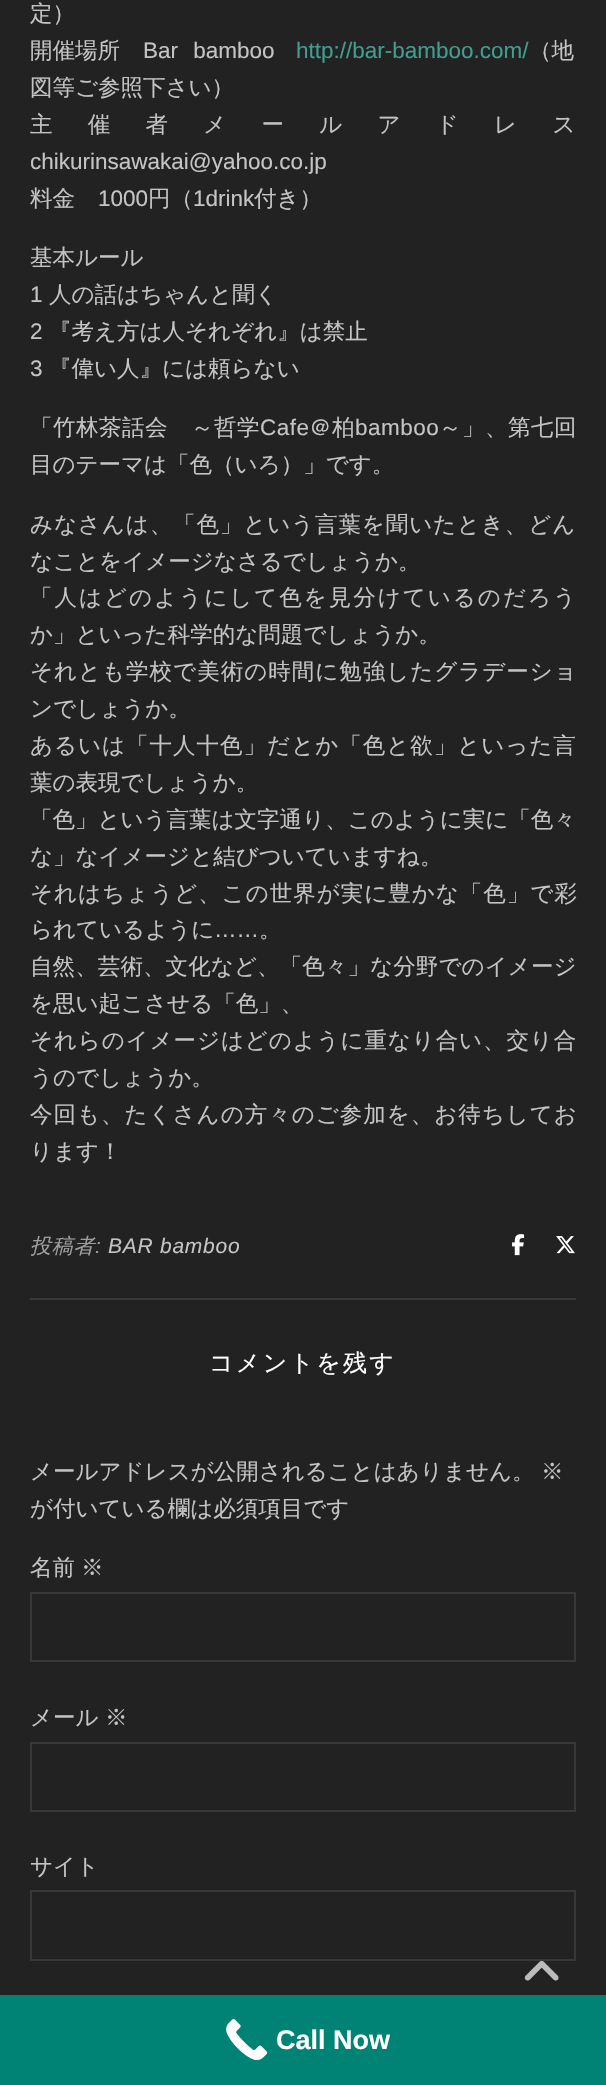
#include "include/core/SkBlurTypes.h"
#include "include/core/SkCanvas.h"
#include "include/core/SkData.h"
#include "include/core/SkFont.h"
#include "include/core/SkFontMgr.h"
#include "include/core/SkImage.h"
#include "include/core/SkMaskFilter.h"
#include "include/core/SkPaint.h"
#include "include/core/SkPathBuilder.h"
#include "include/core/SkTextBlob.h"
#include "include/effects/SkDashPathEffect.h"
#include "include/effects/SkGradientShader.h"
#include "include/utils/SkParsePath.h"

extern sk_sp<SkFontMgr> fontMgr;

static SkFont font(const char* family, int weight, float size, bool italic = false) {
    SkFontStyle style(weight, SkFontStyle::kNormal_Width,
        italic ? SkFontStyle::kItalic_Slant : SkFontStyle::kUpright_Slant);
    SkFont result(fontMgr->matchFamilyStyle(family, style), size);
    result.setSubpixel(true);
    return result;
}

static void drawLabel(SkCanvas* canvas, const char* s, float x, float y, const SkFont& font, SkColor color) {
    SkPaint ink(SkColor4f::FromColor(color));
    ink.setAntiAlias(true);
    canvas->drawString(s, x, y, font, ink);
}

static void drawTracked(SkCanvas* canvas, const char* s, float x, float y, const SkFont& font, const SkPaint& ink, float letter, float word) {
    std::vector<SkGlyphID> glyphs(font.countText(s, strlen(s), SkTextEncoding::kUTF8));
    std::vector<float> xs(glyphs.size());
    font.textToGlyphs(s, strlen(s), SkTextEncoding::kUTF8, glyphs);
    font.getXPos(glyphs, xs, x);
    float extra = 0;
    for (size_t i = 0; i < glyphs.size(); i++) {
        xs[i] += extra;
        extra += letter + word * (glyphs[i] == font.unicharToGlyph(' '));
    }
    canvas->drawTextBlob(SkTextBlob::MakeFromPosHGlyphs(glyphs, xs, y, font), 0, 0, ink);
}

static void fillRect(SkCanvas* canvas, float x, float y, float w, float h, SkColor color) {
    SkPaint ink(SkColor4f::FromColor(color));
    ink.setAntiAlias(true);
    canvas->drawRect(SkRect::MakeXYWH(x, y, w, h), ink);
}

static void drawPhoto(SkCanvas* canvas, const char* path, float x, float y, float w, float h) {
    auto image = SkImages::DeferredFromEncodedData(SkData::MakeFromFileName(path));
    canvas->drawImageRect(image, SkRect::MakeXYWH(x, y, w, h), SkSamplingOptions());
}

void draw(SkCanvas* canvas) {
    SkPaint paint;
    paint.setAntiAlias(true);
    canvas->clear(0xFF222222);
    SkFont font1 = font("WenQuanYi Zen Hei", 500, 22.5f);
    drawLabel(canvas, "定）", 30, 21, font1, 0xFFC4C4C4);
    drawLabel(canvas, "開催場所", 30, 58, font1, 0xFFC4C4C4);
    SkFont font2 = font("Liberation Sans", 400, 22.5f);
    paint.setColor(0xFFC4C4C4);
    drawTracked(canvas, "Bar bamboo", 143, 58, font2, paint, 0, 9);
    drawLabel(canvas, "http://bar-bamboo.com/", 296, 58, font2, 0xFF409E8E);
    drawLabel(canvas, "（地", 529, 58, font1, 0xFFC4C4C4);
    drawLabel(canvas, "図等ご参照下さい）", 30, 95, font1, 0xFFC4C4C4);
    drawTracked(canvas, "主催者メールアドレス", 30, 132, font1, paint, 35.25f, 0);
    drawLabel(canvas, "chikurinsawakai@yahoo.co.jp", 30, 169, font2, 0xFFC4C4C4);
    drawLabel(canvas, "料金", 30, 206, font1, 0xFFC4C4C4);
    drawLabel(canvas, "1000", 98, 206, font2, 0xFFC4C4C4);
    drawLabel(canvas, "円（", 148, 206, font1, 0xFFC4C4C4);
    drawLabel(canvas, "1drink", 193, 206, font2, 0xFFC4C4C4);
    drawLabel(canvas, "付き）", 254, 206, font1, 0xFFC4C4C4);
    drawLabel(canvas, "基本ルール", 30, 265, font1, 0xFFC4C4C4);
    drawLabel(canvas, "1", 30, 302, font2, 0xFFC4C4C4);
    drawLabel(canvas, "人の話はちゃんと聞く", 49, 302, font1, 0xFFC4C4C4);
    drawLabel(canvas, "2", 30, 339, font2, 0xFFC4C4C4);
    drawLabel(canvas, "『考え方は人それぞれ』は禁止", 49, 339, font1, 0xFFC4C4C4);
    drawLabel(canvas, "3", 30, 376, font2, 0xFFC4C4C4);
    drawLabel(canvas, "『偉い人』には頼らない", 49, 376, font1, 0xFFC4C4C4);
    drawTracked(canvas, "「竹林茶話会　～哲学", 30, 435, font1, paint, 0.5f, 0);
    drawTracked(canvas, "Cafe", 260, 435, font2, paint, 0.5f, 0);
    drawTracked(canvas, "＠柏", 309, 435, font1, paint, 0.5f, 0);
    drawTracked(canvas, "bamboo", 355, 435, font2, paint, 0.5f, 0);
    drawTracked(canvas, "～」、第七回", 439, 435, font1, paint, 0.5f, 0);
    drawLabel(canvas, "目のテーマは「色（いろ）」です。", 30, 472, font1, 0xFFC4C4C4);
    drawTracked(canvas, "みなさんは、「色」という言葉を聞いたとき、どん", 30, 532, font1, paint, 0.9f, 0);
    drawLabel(canvas, "なことをイメージなさるでしょうか。", 30, 569, font1, 0xFFC4C4C4);
    drawTracked(canvas, "「人はどのようにして色を見分けているのだろう", 30, 605, font1, paint, 2, 0);
    drawLabel(canvas, "か」といった科学的な問題でしょうか。", 30, 642, font1, 0xFFC4C4C4);
    drawTracked(canvas, "それとも学校で美術の時間に勉強したグラデーショ", 30, 679, font1, paint, 1, 0);
    drawLabel(canvas, "ンでしょうか。", 30, 716, font1, 0xFFC4C4C4);
    drawTracked(canvas, "あるいは「十人十色」だとか「色と欲」といった言", 30, 753, font1, paint, 1, 0);
    drawLabel(canvas, "葉の表現でしょうか。", 30, 790, font1, 0xFFC4C4C4);
    drawLabel(canvas, "「色」という言葉は文字通り、このように実に「色々", 30, 827, font1, 0xFFC4C4C4);
    drawLabel(canvas, "な」なイメージと結びついていますね。", 30, 864, font1, 0xFFC4C4C4);
    drawTracked(canvas, "それはちょうど、この世界が実に豊かな「色」で彩", 30, 901, font1, paint, 1, 0);
    drawLabel(canvas, "られているように", 30, 937, font1, 0xFFC4C4C4);
    drawLabel(canvas, "……", 214, 937, font2, 0xFFC4C4C4);
    drawLabel(canvas, "。", 259, 937, font1, 0xFFC4C4C4);
    drawTracked(canvas, "自然、芸術、文化など、「色々」な分野でのイメージ", 30, 974, font1, paint, 0.1f, 0);
    drawLabel(canvas, "を思い起こさせる「色」、", 30, 1011, font1, 0xFFC4C4C4);
    drawTracked(canvas, "それらのイメージはどのように重なり合い、交り合", 30, 1048, font1, paint, 0.9f, 0);
    drawLabel(canvas, "うのでしょうか。", 30, 1085, font1, 0xFFC4C4C4);
    drawTracked(canvas, "今回も、たくさんの方々のご参加を、お待ちしてお", 30, 1122, font1, paint, 1, 0);
    drawLabel(canvas, "ります！", 30, 1159, font1, 0xFFC4C4C4);
    fillRect(canvas, 30, 1298, 546, 2, 0xFF383838);
    SkFont font3 = font("WenQuanYi Zen Hei", 500, 21, true);
    paint.setColor(0xFF9E9E9E);
    drawTracked(canvas, "投稿者", 30, 1253, font3, paint, 0.75f, 0);
    SkFont font4 = font("Liberation Sans", 400, 21, true);
    drawTracked(canvas, ":", 95, 1253, font4, paint, 0.75f, 0);
    paint.setColor(0xFFC4C4C4);
    drawTracked(canvas, "BAR bamboo", 108, 1253, font4, paint, 0.75f, 0);
    drawPhoto(canvas, "assets/img1.png", 512, 1234, 13, 22);
    drawPhoto(canvas, "assets/img2.png", 556, 1236, 19, 18);
    SkFont font5 = font("WenQuanYi Zen Hei", 500, 24);
    paint.setColor(0xFFFFFFFF);
    drawTracked(canvas, "コメントを残す", 209, 1371, font5, paint, 2.25f, 0);
    drawLabel(canvas, "メールアドレスが公開されることはありません。", 30, 1479, font1, 0xFFC4C4C4);
    drawLabel(canvas, "※", 541, 1479, font1, 0xFFC4C4C4);
    drawLabel(canvas, "が付いている欄は必須項目です", 30, 1516, font1, 0xFFC4C4C4);
    drawLabel(canvas, "名前", 30, 1575, font1, 0xFFC4C4C4);
    drawLabel(canvas, "※", 81, 1575, font1, 0xFFC4C4C4);
    paint.setStroke(true);
    paint.setStrokeWidth(2);
    paint.setColor(0xFF383838);
    canvas->drawRect(SkRect::MakeXYWH(31, 1593, 544, 68), paint);
    drawLabel(canvas, "メール", 30, 1725, font1, 0xFFC4C4C4);
    drawLabel(canvas, "※", 105, 1725, font1, 0xFFC4C4C4);
    canvas->drawRect(SkRect::MakeXYWH(31, 1743, 544, 68), paint);
    drawLabel(canvas, "サイト", 30, 1874, font1, 0xFFC4C4C4);
    canvas->drawRect(SkRect::MakeXYWH(31, 1891, 544, 69), paint);
    drawPhoto(canvas, "assets/img3.png", 524, 1960, 35, 21);
    fillRect(canvas, 0, 1995, 606, 90, 0xFF008275);
    drawPhoto(canvas, "assets/img4.png", 226, 2019, 42, 42);
    SkFont font6 = font("Liberation Sans", 700, 27);
    drawLabel(canvas, "Call Now", 276, 2049, font6, 0xFFFFFFFF);
}
